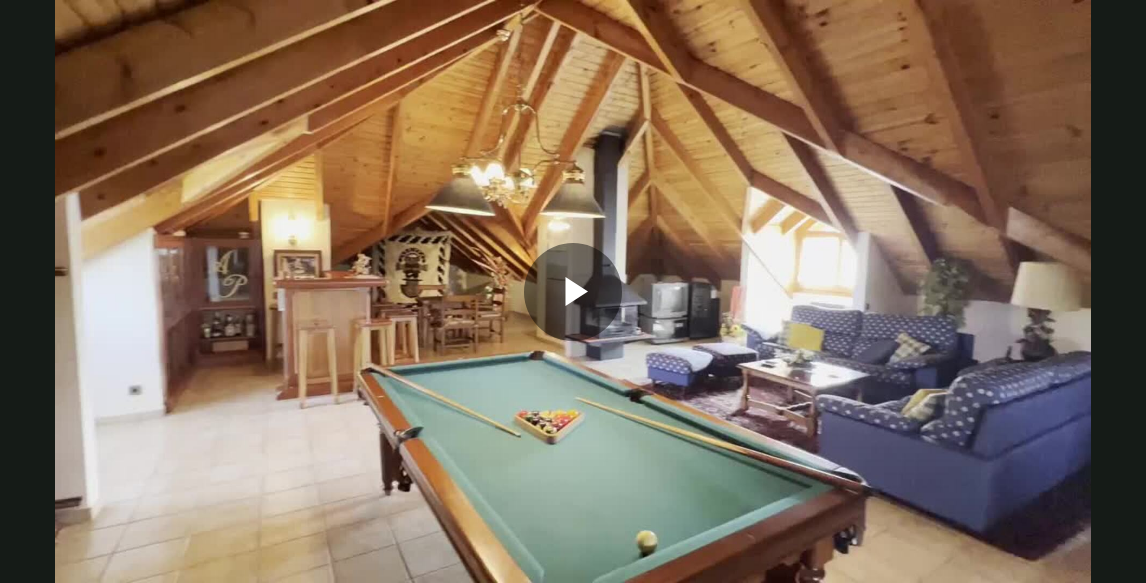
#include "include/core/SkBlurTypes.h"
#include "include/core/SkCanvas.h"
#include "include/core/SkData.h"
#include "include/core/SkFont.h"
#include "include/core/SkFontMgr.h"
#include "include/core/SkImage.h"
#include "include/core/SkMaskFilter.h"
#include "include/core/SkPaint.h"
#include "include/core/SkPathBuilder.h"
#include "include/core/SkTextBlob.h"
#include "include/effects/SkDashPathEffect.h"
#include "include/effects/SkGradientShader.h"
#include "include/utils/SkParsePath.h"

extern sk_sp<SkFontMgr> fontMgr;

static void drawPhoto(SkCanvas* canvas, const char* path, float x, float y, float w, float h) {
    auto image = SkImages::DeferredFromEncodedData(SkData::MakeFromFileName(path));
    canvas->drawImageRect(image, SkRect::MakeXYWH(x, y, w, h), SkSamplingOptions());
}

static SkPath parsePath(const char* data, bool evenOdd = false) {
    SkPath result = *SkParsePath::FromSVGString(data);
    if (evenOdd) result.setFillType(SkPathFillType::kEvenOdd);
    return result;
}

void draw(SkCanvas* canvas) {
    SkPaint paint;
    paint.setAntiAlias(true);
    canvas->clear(0xFF151B17);
    drawPhoto(canvas, "assets/img1.png", 55, 0, 1036, 583);
    paint.setColor(0x73000000);
    canvas->drawCircle(573, 292, 49, paint);
    paint.setColor(0xFFFFFFFF);
    canvas->drawPath(parsePath("M565.5 277V306L588 291.5Z"), paint);
}
